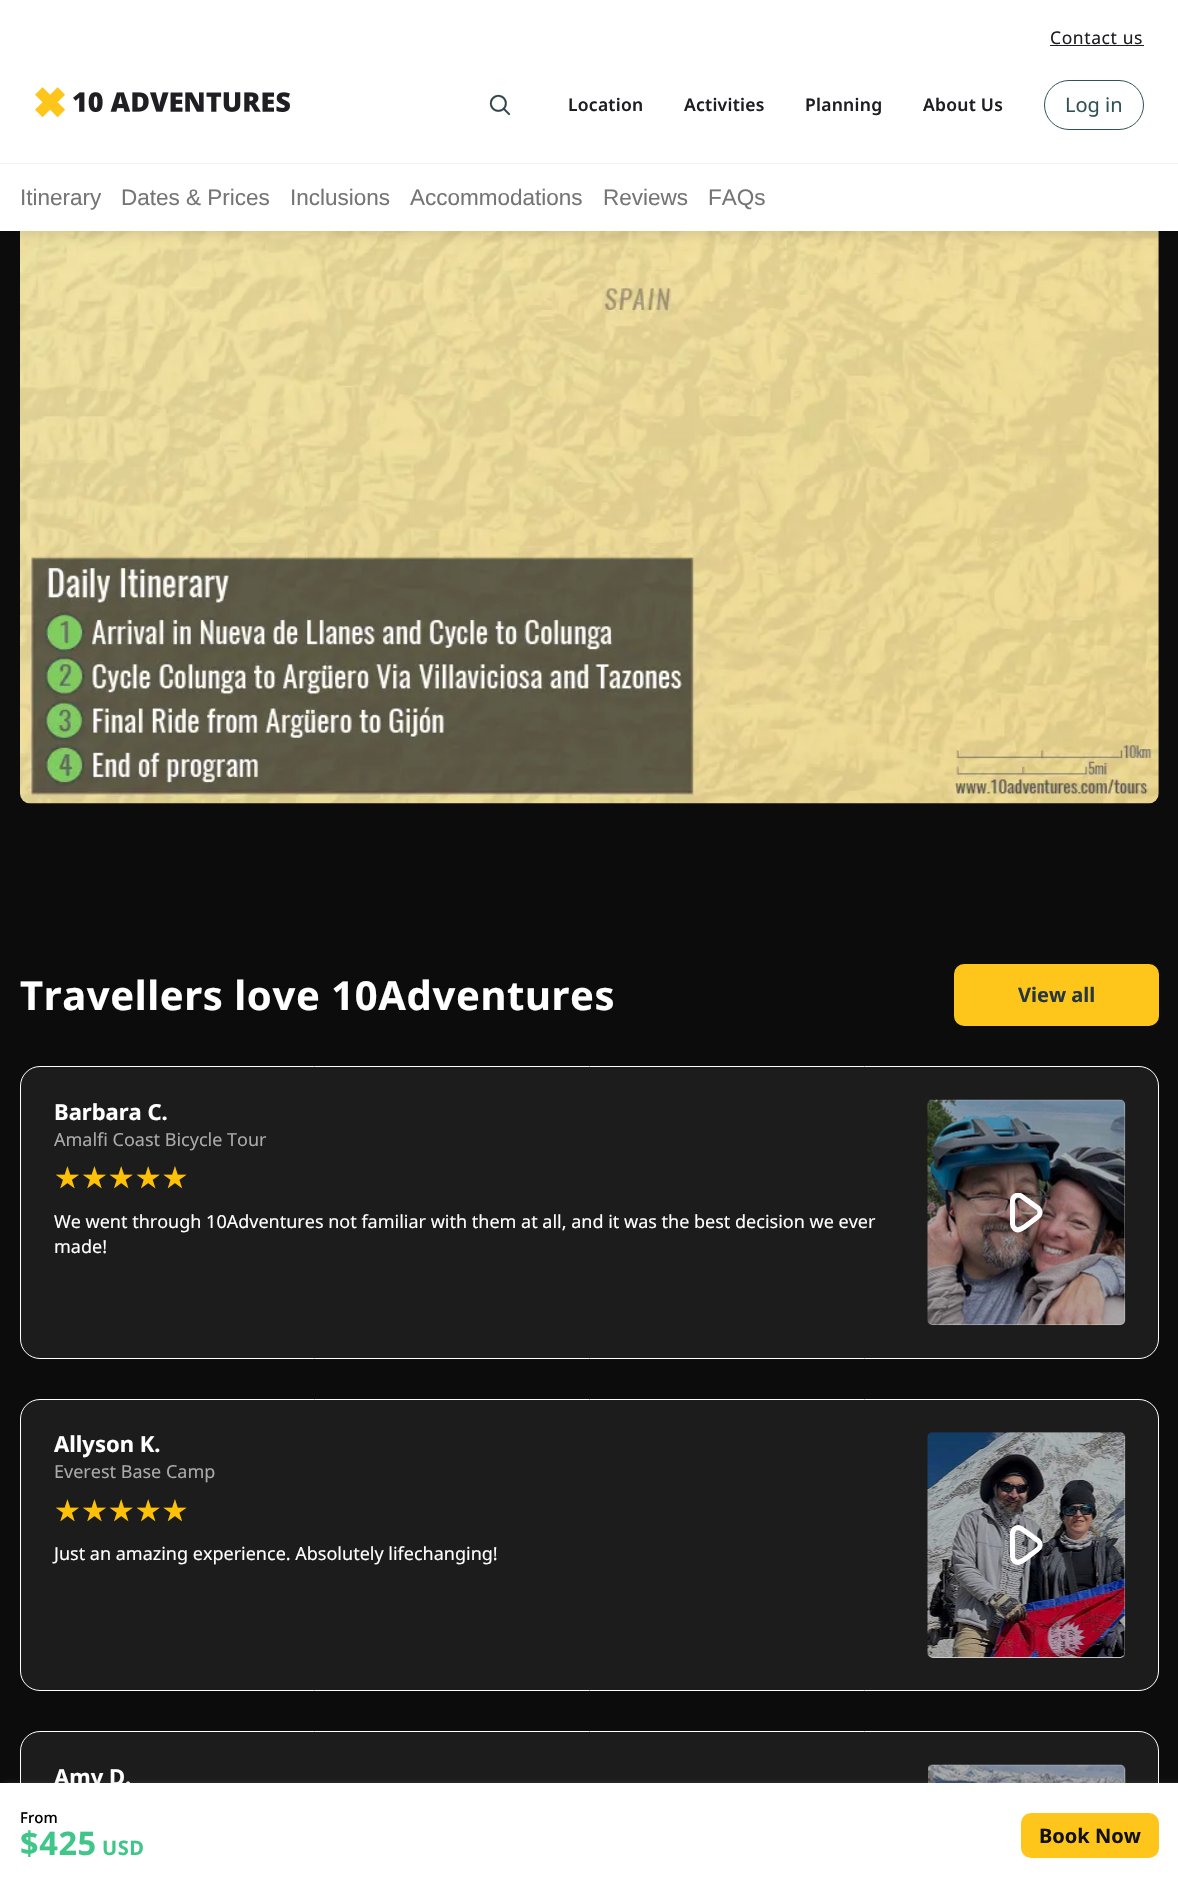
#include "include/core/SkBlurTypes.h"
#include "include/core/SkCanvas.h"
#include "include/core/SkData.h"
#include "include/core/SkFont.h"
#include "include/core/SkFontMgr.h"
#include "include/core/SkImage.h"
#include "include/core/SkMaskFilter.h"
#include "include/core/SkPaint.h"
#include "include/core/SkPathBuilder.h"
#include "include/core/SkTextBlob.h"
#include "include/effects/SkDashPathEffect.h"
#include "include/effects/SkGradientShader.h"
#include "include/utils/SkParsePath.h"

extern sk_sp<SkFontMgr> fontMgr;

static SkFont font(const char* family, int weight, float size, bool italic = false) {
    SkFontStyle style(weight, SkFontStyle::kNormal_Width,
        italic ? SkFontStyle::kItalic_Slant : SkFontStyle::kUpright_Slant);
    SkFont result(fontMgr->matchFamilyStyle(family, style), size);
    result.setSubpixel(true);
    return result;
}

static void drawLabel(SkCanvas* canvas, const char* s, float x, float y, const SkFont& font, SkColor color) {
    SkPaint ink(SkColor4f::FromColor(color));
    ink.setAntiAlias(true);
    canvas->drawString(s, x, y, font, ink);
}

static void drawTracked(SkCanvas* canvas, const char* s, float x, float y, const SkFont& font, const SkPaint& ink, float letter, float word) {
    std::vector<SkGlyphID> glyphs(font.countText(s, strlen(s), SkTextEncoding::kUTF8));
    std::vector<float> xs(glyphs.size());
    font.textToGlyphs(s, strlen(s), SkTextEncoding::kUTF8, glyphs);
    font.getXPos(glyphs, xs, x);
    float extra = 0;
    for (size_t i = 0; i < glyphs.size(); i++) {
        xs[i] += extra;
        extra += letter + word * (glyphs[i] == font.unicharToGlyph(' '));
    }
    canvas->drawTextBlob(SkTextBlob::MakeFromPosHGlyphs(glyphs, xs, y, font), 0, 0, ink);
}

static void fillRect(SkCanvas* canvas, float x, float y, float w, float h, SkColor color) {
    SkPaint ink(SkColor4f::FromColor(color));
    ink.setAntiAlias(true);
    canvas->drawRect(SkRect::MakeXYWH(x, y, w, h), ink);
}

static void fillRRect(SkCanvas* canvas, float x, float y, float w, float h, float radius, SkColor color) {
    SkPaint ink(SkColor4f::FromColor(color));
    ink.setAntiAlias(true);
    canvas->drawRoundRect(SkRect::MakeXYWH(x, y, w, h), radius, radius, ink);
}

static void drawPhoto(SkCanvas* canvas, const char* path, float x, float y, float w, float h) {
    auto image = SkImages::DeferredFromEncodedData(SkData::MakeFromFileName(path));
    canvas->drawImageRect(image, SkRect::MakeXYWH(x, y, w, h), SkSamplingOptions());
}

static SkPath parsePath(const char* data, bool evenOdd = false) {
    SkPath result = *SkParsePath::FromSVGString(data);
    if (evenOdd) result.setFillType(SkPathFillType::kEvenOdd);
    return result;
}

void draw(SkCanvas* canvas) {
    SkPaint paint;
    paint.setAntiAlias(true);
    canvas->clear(0xFF0C0C0C);
    drawPhoto(canvas, "assets/img3.png", 20, 231, 1139, 573);
    paint.setColor(0x1A000000);
    paint.setMaskFilter(SkMaskFilter::MakeBlur(kNormal_SkBlurStyle, 5));
    canvas->drawRect(SkRect::MakeXYWH(0, 169, 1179, 67), paint);
    paint.setMaskFilter(nullptr);
    fillRect(canvas, 0, 0, 1178, 163, 0xFFFFFFFF);
    fillRect(canvas, 0, 163, 1178, 1, 0xFFF2F2F2);
    SkFont font1 = font("Noto Sans", 400, 17.5f);
    paint.setColor(0xFF1F1F23);
    drawTracked(canvas, "Contact us", 1050, 44, font1, paint, 0.6f, 0);
    fillRect(canvas, 1050, 45, 94, 1, 0xFF1F1F23);
    drawPhoto(canvas, "assets/img1.png", 35, 87, 255, 31);
    drawPhoto(canvas, "assets/img2.png", 489, 94, 22, 22);
    SkFont font2 = font("Noto Sans", 600, 17.5f);
    drawTracked(canvas, "Location", 568, 111, font2, paint, 0.25f, 0);
    drawTracked(canvas, "Activities", 684, 111, font2, paint, 0.25f, 0);
    drawTracked(canvas, "Planning", 805, 111, font2, paint, 0.25f, 0);
    drawTracked(canvas, "About Us", 923, 111, font2, paint, 0.25f, 0);
    paint.setStroke(true);
    paint.setStrokeWidth(1);
    paint.setColor(0xFF315254);
    canvas->drawRoundRect(SkRect::MakeXYWH(1044.5f, 80.5f, 99, 49), 24.5f, 24.5f, paint);
    SkFont font3 = font("Noto Sans", 400, 20);
    drawLabel(canvas, "Log in", 1065, 112, font3, 0xFF315254);
    fillRect(canvas, 0, 164, 1178, 67, 0xFFFFFFFF);
    SkFont font4 = font("Liberation Sans", 400, 22.5f);
    drawLabel(canvas, "Itinerary", 20, 205, font4, 0xFF757575);
    drawLabel(canvas, "Dates & Prices", 121, 205, font4, 0xFF757575);
    drawLabel(canvas, "Inclusions", 290, 205, font4, 0xFF757575);
    drawLabel(canvas, "Accommodations", 410, 205, font4, 0xFF757575);
    drawLabel(canvas, "Reviews", 603, 205, font4, 0xFF757575);
    drawLabel(canvas, "FAQs", 708, 205, font4, 0xFF757575);
    SkFont font5 = font("Noto Sans", 700, 40);
    paint.setStroke(false);
    paint.setColor(0xFFFFFFFF);
    drawTracked(canvas, "Travellers love 10Adventures", 20, 1010, font5, paint, 0.6f, 0);
    fillRRect(canvas, 954, 964, 205, 62, 10, 0xFFFEC51B);
    SkFont font6 = font("Noto Sans", 700, 20);
    drawLabel(canvas, "View all", 1018, 1002, font6, 0xFF26383B);
    paint.setColor(0xFF1C1C1C);
    canvas->drawRoundRect(SkRect::MakeXYWH(20.5f, 1066.5f, 1138, 292), 19.5f, 19.5f, paint);
    paint.setStroke(true);
    paint.setColor(0xFFFFFFFF);
    canvas->drawRoundRect(SkRect::MakeXYWH(20.5f, 1066.5f, 1138, 292), 19.5f, 19.5f, paint);
    SkFont font7 = font("Noto Sans", 700, 22);
    drawLabel(canvas, "Barbara C.", 54, 1120, font7, 0xFFFFFFFF);
    SkFont font8 = font("Noto Sans", 400, 18);
    drawLabel(canvas, "Amalfi Coast Bicycle Tour", 54, 1146, font8, 0xFFAAAAAA);
    SkFont font9 = font("DejaVu Sans", 400, 30);
    drawLabel(canvas, "★★★★★", 54, 1188, font9, 0xFFFFC107);
    drawLabel(canvas, "We went through 10Adventures not familiar with them at all, and it was the best decision we ever", 54, 1228, font8, 0xFFFFFFFF);
    drawLabel(canvas, "made!", 54, 1253, font8, 0xFFFFFFFF);
    fillRRect(canvas, 928, 1100, 197, 225, 5, 0xFFD3D3D3);
    drawPhoto(canvas, "assets/img4.png", 927, 1099, 199, 227);
    canvas->save();
    canvas->clipRect(SkRect::MakeXYWH(1010, 1193, 33, 40));
    paint.setStrokeWidth(5);
    canvas->drawPath(parsePath("M1012.5 1224V1208.5C1012.5 1204.5 1011 1197.5 1016 1195.5C1017.5 1195 1019 1195 1020.5 1195.5L1038.5 1208.5C1041 1211 1040.5 1215 1037.5 1217L1024.5 1227C1021.5 1229 1018 1231.5 1014.5 1228.5C1013.5 1227.5 1012.5 1226 1012.5 1224Z"), paint);
    canvas->restore();
    paint.setStroke(false);
    paint.setColor(0xFF1C1C1C);
    canvas->drawRoundRect(SkRect::MakeXYWH(20.5f, 1399.5f, 1138, 291), 19.5f, 19.5f, paint);
    paint.setStroke(true);
    paint.setStrokeWidth(1);
    paint.setColor(0xFFFFFFFF);
    canvas->drawRoundRect(SkRect::MakeXYWH(20.5f, 1399.5f, 1138, 291), 19.5f, 19.5f, paint);
    drawLabel(canvas, "Allyson K.", 54, 1452, font7, 0xFFFFFFFF);
    drawLabel(canvas, "Everest Base Camp", 54, 1478, font8, 0xFFAAAAAA);
    drawLabel(canvas, "★★★★★", 54, 1521, font9, 0xFFFFC107);
    drawLabel(canvas, "Just an amazing experience. Absolutely lifechanging!", 54, 1560, font8, 0xFFFFFFFF);
    fillRRect(canvas, 928, 1433, 197, 225, 5, 0xFFD3D3D3);
    drawPhoto(canvas, "assets/img5.png", 927, 1432, 199, 226);
    canvas->save();
    canvas->clipRect(SkRect::MakeXYWH(1010, 1525, 33, 40));
    paint.setStrokeWidth(5);
    canvas->drawPath(parsePath("M1012.5 1556.5V1541C1012.5 1537 1011 1530 1016 1528C1017.5 1527.5 1019 1527.5 1020.5 1528L1038.5 1541C1041 1543.5 1040.5 1547.5 1037.5 1549.5L1024.5 1559.5C1021.5 1561.5 1018 1564 1014.5 1561C1013.5 1560 1012.5 1558.5 1012.5 1556.5Z"), paint);
    canvas->restore();
    paint.setStroke(false);
    paint.setColor(0xFF1C1C1C);
    canvas->drawRoundRect(SkRect::MakeXYWH(20.5f, 1731.5f, 1138, 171), 19.5f, 19.5f, paint);
    paint.setStroke(true);
    paint.setStrokeWidth(1);
    paint.setColor(0xFFFFFFFF);
    canvas->drawRoundRect(SkRect::MakeXYWH(20.5f, 1731.5f, 1138, 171), 19.5f, 19.5f, paint);
    drawLabel(canvas, "Amy D.", 54, 1785, font7, 0xFFFFFFFF);
    fillRRect(canvas, 928, 1765, 197, 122, 5, 0xFFD3D3D3);
    drawPhoto(canvas, "assets/img6.png", 928, 1764, 198, 19);
    paint.setStroke(false);
    paint.setColor(0x407C7C7C);
    paint.setMaskFilter(SkMaskFilter::MakeBlur(kNormal_SkBlurStyle, 2.5f));
    canvas->drawRect(SkRect::MakeXYWH(5, 1783, 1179, 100), paint);
    paint.setMaskFilter(nullptr);
    fillRect(canvas, 0, 1783, 1178, 99, 0xFFFFFFFF);
    SkFont font10 = font("Noto Sans", 500, 15);
    drawLabel(canvas, "From", 20, 1823, font10, 0xFF000000);
    SkFont font11 = font("Noto Sans", 700, 32.5f);
    paint.setColor(0xFF41C689);
    drawTracked(canvas, "$425", 20, 1855, font11, paint, 0.6f, 0);
    drawTracked(canvas, "USD", 102, 1855, font6, paint, 0.6f, 0);
    fillRRect(canvas, 1021, 1813, 138, 45, 10, 0xFFFEC51B);
    drawLabel(canvas, "Book Now", 1039, 1843, font6, 0xFF111111);
}
